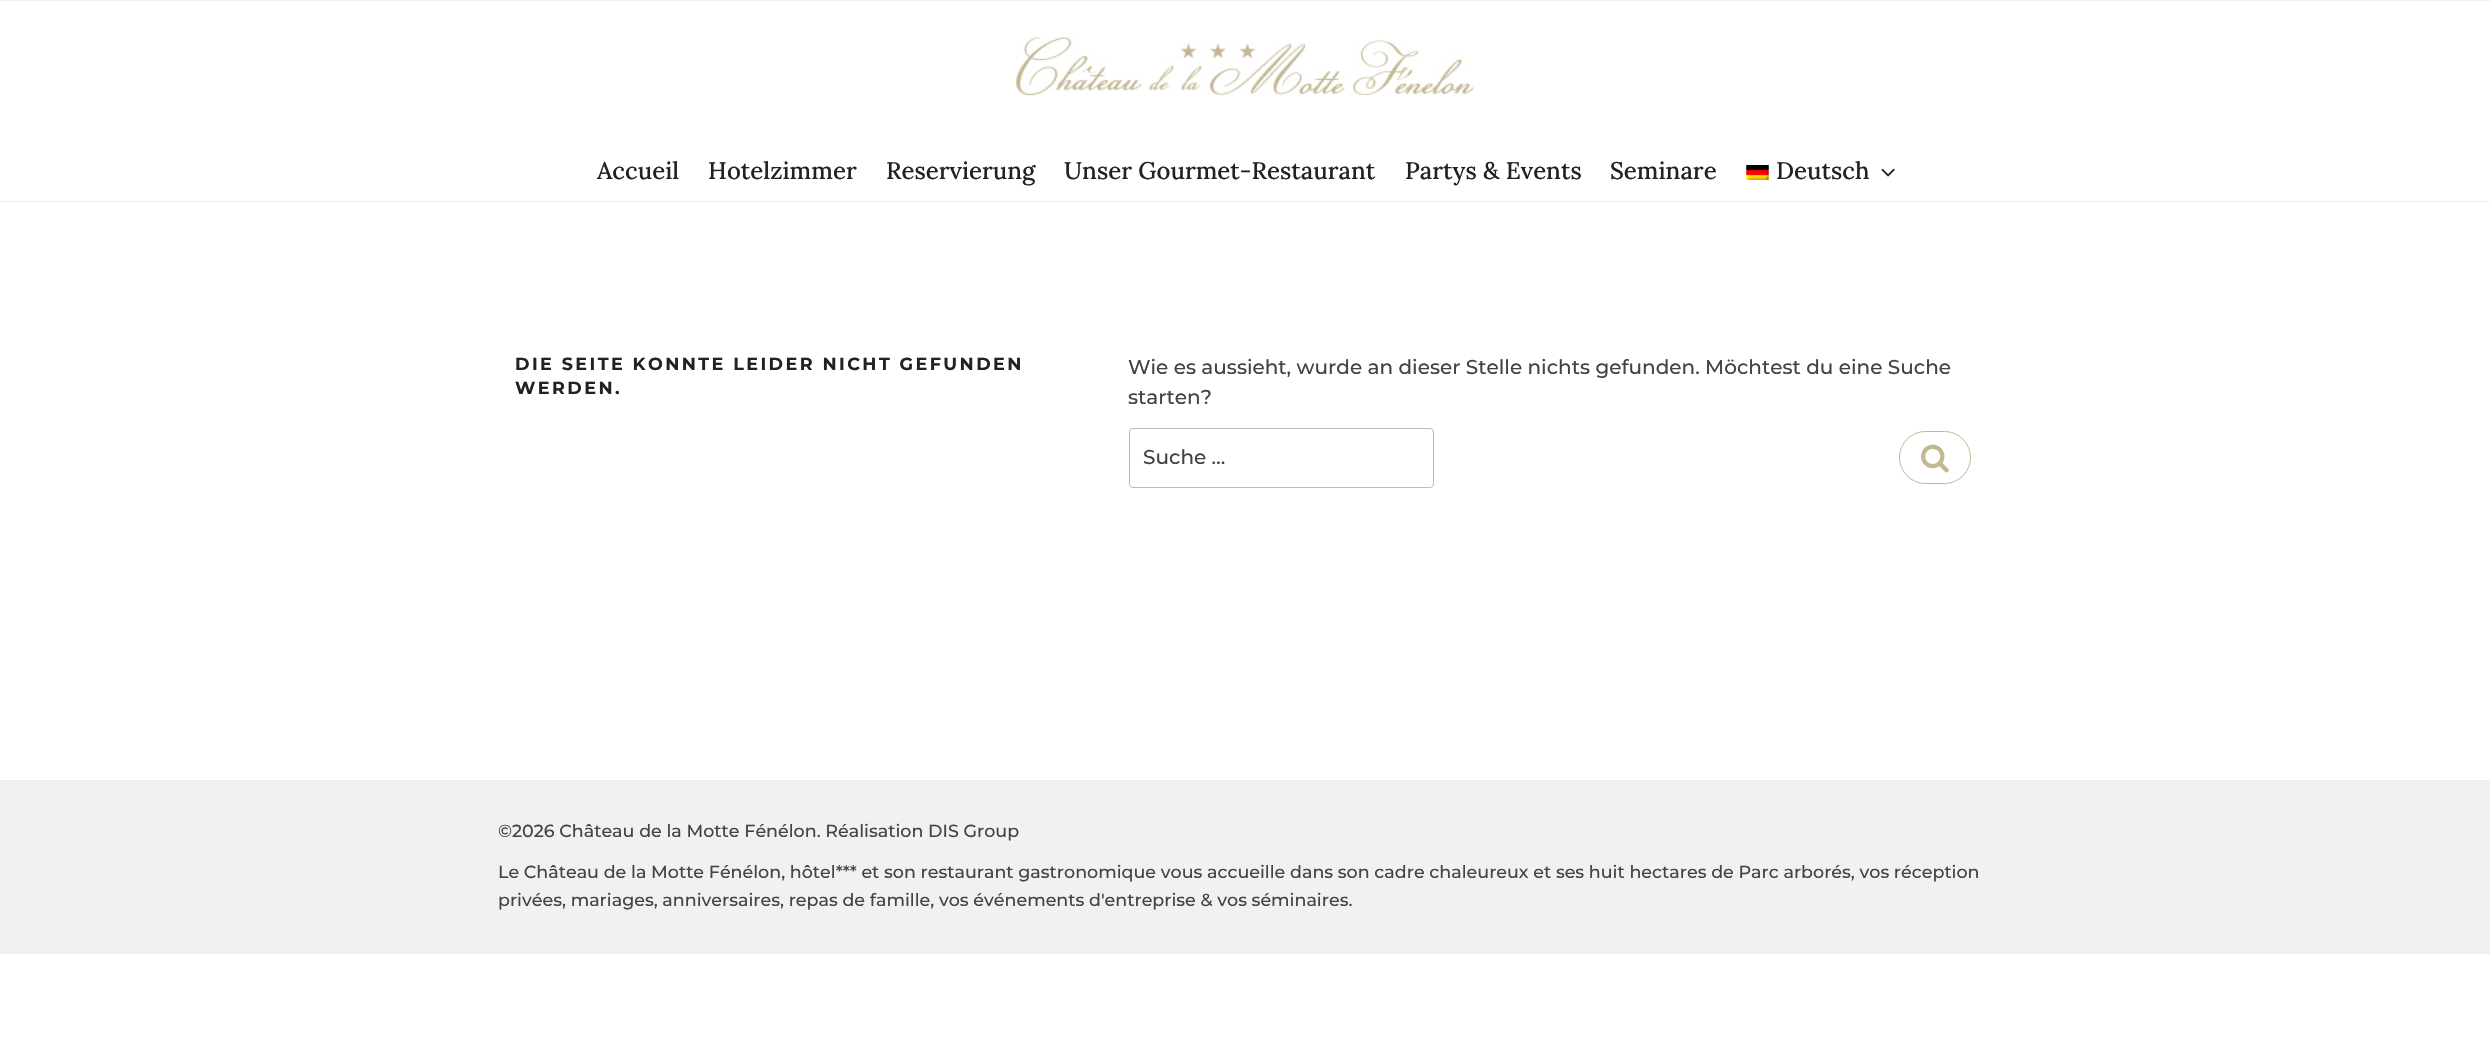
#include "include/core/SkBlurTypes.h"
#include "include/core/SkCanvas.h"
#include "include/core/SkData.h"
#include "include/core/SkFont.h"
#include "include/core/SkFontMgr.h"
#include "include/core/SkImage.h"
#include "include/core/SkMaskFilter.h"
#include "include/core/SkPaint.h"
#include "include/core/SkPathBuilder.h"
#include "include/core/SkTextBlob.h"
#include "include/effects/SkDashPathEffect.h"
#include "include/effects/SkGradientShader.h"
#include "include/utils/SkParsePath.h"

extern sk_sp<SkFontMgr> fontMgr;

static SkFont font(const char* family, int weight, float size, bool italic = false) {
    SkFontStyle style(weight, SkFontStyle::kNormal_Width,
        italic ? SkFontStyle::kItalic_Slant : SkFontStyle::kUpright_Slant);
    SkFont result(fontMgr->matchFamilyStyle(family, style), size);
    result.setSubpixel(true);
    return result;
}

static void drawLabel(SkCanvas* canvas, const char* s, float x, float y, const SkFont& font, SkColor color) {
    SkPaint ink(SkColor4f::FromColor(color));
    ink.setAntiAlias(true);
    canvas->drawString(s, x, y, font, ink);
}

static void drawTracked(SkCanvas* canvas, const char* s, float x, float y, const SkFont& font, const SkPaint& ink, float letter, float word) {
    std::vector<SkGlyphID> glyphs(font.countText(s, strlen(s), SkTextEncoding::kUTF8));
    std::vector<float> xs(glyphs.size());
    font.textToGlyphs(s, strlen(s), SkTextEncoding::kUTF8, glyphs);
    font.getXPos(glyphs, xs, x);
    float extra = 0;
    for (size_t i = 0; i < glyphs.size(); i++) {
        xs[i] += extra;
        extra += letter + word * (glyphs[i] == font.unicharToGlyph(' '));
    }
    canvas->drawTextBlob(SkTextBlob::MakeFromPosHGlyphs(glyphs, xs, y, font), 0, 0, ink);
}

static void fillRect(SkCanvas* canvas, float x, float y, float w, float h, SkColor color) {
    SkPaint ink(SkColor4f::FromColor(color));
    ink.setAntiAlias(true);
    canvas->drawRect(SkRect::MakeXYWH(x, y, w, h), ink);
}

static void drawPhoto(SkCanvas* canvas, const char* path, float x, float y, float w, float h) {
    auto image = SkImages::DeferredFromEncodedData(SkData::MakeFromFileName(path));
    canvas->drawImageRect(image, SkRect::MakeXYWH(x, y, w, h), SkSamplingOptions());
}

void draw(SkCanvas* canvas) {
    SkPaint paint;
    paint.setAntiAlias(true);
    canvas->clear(0xFFFFFFFF);
    fillRect(canvas, 0, 0, 2490, 1, 0xFFEEEEEE);
    fillRect(canvas, 0, 201, 2490, 1, 0xFFEEEEEE);
    drawPhoto(canvas, "assets/img1.png", 1016, 37, 458, 59);
    SkFont font1 = font("Lora", 500, 24);
    drawLabel(canvas, "Accueil", 597, 179, font1, 0xFF222222);
    drawLabel(canvas, "Hotelzimmer", 708, 179, font1, 0xFF222222);
    drawLabel(canvas, "Reservierung", 886, 179, font1, 0xFF222222);
    drawLabel(canvas, "Unser Gourmet-Restaurant", 1064, 179, font1, 0xFF222222);
    drawLabel(canvas, "Partys & Events", 1405, 179, font1, 0xFF222222);
    drawLabel(canvas, "Seminare", 1610, 179, font1, 0xFF222222);
    drawPhoto(canvas, "assets/img2.png", 1746, 165, 23, 15);
    drawLabel(canvas, "Deutsch", 1776, 179, font1, 0xFF222222);
    drawPhoto(canvas, "assets/img3.png", 1881, 168, 14, 9);
    SkFont font2 = font("Montserrat", 700, 17.5f);
    paint.setColor(0xFF222222);
    drawTracked(canvas, "DIE SEITE KONNTE LEIDER NICHT GEFUNDEN", 515, 370, font2, paint, 2.45f, 0);
    drawTracked(canvas, "WERDEN.", 515, 394, font2, paint, 2.45f, 0);
    SkFont font3 = font("Montserrat", 500, 20);
    drawLabel(canvas, "Wie es aussieht, wurde an dieser Stelle nichts gefunden. Möchtest du eine Suche", 1128, 374, font3, 0xFF444444);
    drawLabel(canvas, "starten?", 1128, 404, font3, 0xFF444444);
    paint.setStroke(true);
    paint.setStrokeWidth(1);
    paint.setColor(0xFFBBBBBB);
    canvas->drawRoundRect(SkRect::MakeXYWH(1129.5f, 428.5f, 304, 59), 3.5f, 3.5f, paint);
    drawLabel(canvas, "Suche …", 1143, 464, font3, 0xFF444444);
    paint.setColor(0xFFC3B791);
    canvas->drawRoundRect(SkRect::MakeXYWH(1899.5f, 431.5f, 71, 52), 26, 26, paint);
    drawPhoto(canvas, "assets/img4.png", 1920, 444, 29, 29);
    fillRect(canvas, 0, 781, 2490, 173, 0xFFF1F1F1);
    fillRect(canvas, 0, 780, 2490, 1, 0xFFEEEEEE);
    SkFont font4 = font("Montserrat", 500, 17.5f);
    drawLabel(canvas, "©2026 Château de la Motte Fénélon. Réalisation DIS Group", 498, 837, font4, 0xFF444444);
    drawLabel(canvas, "Le Château de la Motte Fénélon, hôtel*** et son restaurant gastronomique vous accueille dans son cadre chaleureux et ses huit hectares de Parc arborés, vos réception", 498, 878, font4, 0xFF444444);
    drawLabel(canvas, "privées, mariages, anniversaires, repas de famille, vos événements d'entreprise & vos séminaires.", 498, 906, font4, 0xFF444444);
}
